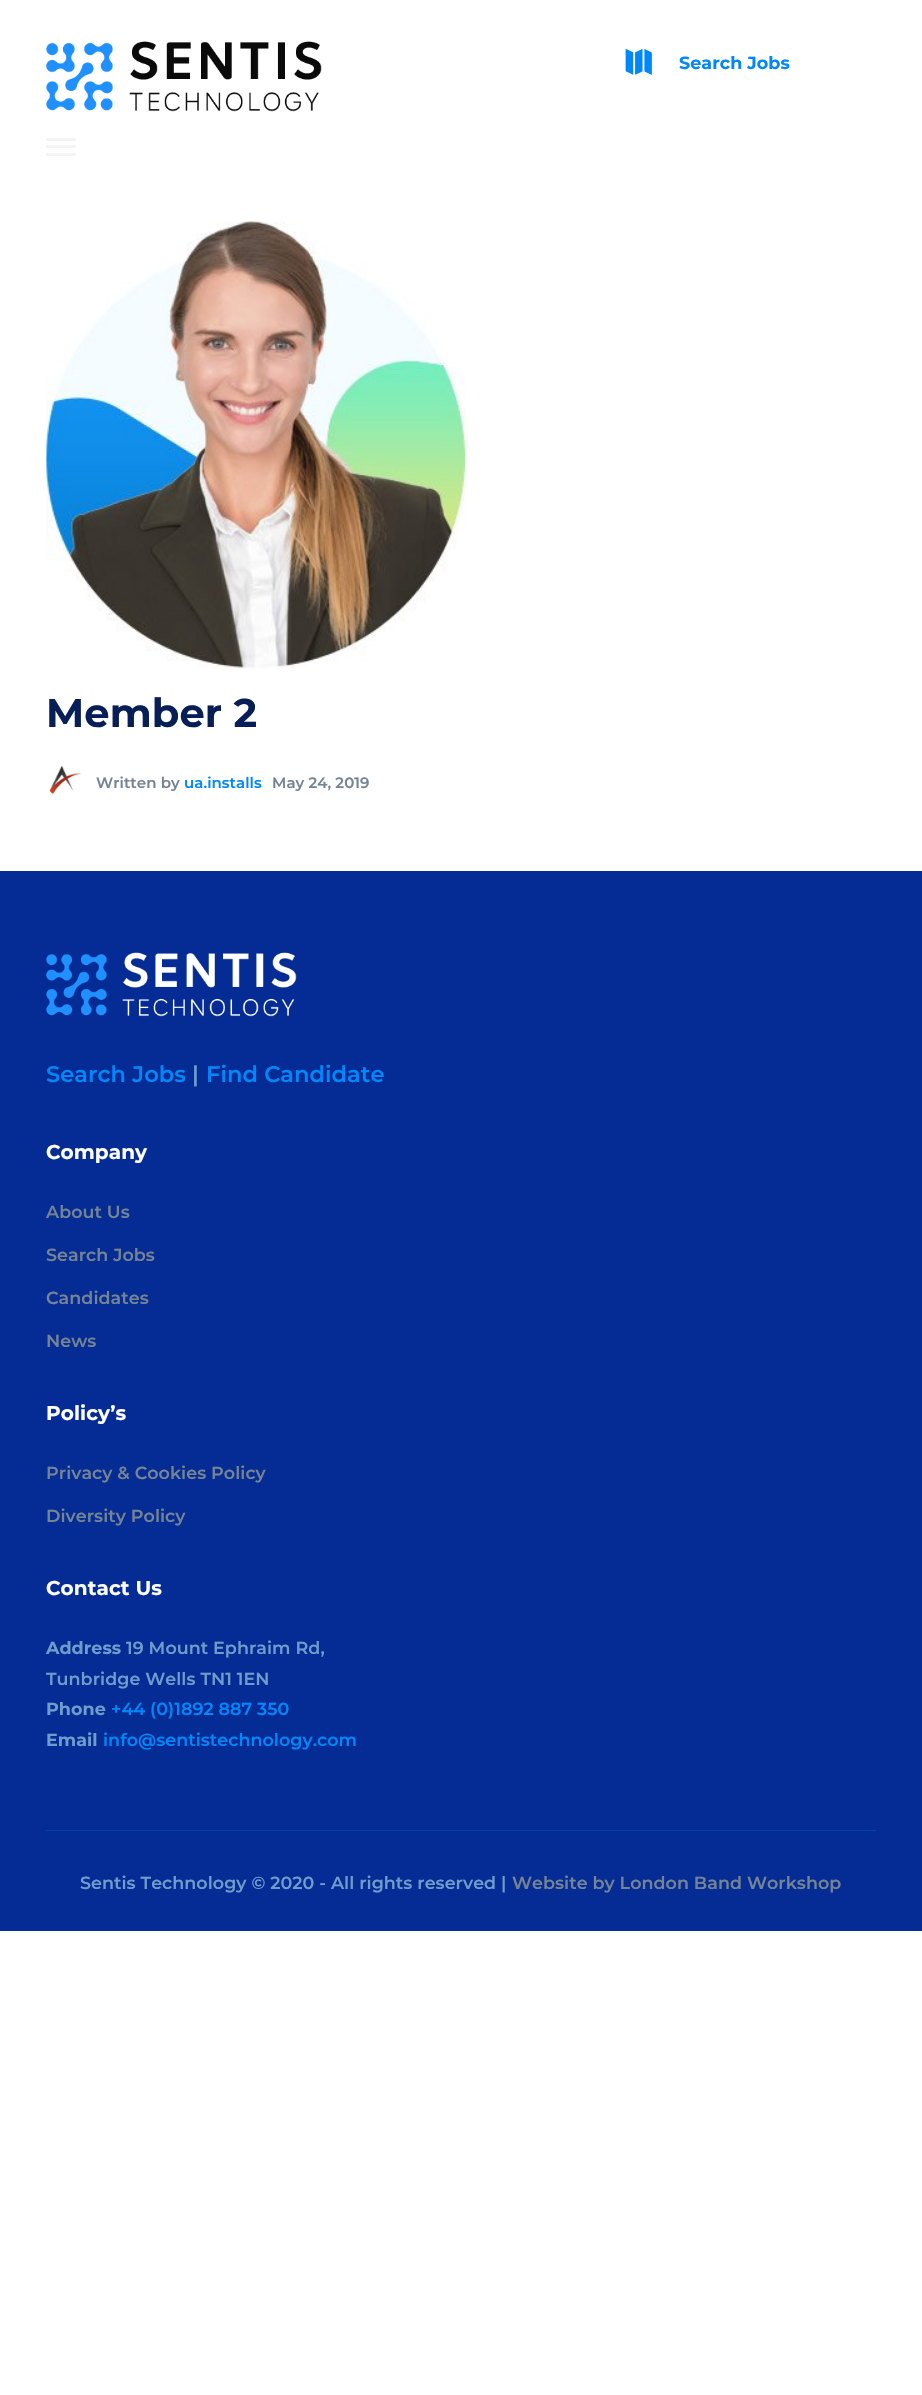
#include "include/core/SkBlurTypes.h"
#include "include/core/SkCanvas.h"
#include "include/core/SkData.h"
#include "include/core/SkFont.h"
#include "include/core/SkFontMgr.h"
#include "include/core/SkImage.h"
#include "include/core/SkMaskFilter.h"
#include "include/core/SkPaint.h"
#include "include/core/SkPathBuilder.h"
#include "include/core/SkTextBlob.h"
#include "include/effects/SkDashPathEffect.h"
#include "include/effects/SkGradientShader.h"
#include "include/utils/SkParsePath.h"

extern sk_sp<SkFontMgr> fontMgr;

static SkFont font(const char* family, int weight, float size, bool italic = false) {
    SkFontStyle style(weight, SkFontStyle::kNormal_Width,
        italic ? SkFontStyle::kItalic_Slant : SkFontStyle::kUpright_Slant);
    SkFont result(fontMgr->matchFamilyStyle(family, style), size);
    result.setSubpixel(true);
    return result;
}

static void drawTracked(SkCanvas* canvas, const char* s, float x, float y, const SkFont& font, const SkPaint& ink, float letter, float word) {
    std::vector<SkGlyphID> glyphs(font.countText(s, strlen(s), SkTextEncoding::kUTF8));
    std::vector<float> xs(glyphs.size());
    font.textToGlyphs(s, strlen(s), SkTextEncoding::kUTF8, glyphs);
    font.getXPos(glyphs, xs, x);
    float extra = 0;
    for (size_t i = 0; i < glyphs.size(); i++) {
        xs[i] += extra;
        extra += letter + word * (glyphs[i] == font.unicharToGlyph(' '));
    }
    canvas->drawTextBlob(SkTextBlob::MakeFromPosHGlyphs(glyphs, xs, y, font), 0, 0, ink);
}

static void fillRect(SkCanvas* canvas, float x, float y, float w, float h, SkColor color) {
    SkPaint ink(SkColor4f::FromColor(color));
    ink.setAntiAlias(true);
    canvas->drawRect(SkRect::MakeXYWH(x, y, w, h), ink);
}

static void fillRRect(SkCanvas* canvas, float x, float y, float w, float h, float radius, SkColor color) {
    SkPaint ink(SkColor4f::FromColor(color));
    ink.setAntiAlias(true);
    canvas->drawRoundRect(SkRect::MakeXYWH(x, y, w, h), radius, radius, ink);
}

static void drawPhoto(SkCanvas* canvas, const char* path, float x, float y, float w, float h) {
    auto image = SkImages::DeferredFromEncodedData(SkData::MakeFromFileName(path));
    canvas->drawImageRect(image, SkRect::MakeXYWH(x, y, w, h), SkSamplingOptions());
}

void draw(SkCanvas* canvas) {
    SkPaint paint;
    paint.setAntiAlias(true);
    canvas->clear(0xFFFFFFFF);
    drawPhoto(canvas, "assets/img1.png", 46, 41, 276, 71);
    drawPhoto(canvas, "assets/img2.png", 625, 48, 27, 27);
    SkFont font1 = font("Montserrat", 700, 17.5f);
    paint.setColor(0xFF0087FA);
    drawTracked(canvas, "Search Jobs", 679, 69, font1, paint, 0.05f, 0);
    fillRRect(canvas, 46, 138, 30, 3, 1.5f, 0xFFF4F4F4);
    fillRRect(canvas, 46, 145, 30, 3, 1.5f, 0xFFF4F4F4);
    fillRRect(canvas, 46, 153, 30, 3, 1.5f, 0xFFF4F4F4);
    drawPhoto(canvas, "assets/img3.png", 46, 221, 419, 448);
    SkFont font2 = font("Montserrat", 700, 40);
    paint.setColor(0xFF071E57);
    drawTracked(canvas, "Member 2", 46, 727, font2, paint, 0.1f, 0);
    drawPhoto(canvas, "assets/img4.png", 49, 766, 33, 28);
    SkFont font3 = font("Montserrat", 600, 15);
    paint.setColor(0xFF748494);
    drawTracked(canvas, "Written by", 96, 788, font3, paint, 0.05f, 0);
    paint.setColor(0xFF0087FA);
    drawTracked(canvas, "ua.installs", 184, 788, font3, paint, 0.05f, 0);
    paint.setColor(0xFF748494);
    drawTracked(canvas, "May 24, 2019", 272, 788, font3, paint, 0.05f, 0);
    fillRect(canvas, 0, 871, 922, 1060, 0xFF052B94);
    drawPhoto(canvas, "assets/img5.png", 46, 952, 251, 65);
    SkFont font4 = font("Montserrat", 600, 22.5f);
    paint.setColor(0xFF0087FA);
    drawTracked(canvas, "Search Jobs", 46, 1082, font4, paint, 0.05f, 0);
    paint.setColor(0xFF6E9DCC);
    drawTracked(canvas, "|", 192, 1082, font4, paint, 0.05f, 0);
    paint.setColor(0xFF0087FA);
    drawTracked(canvas, "Find Candidate", 206, 1082, font4, paint, 0.05f, 0);
    SkFont font5 = font("Montserrat", 700, 20);
    paint.setColor(0xFFFFFFFF);
    drawTracked(canvas, "Company", 46, 1159, font5, paint, 0.1f, 0);
    SkFont font6 = font("Montserrat", 600, 17.5f);
    paint.setColor(0xFF748494);
    drawTracked(canvas, "About Us", 46, 1218, font6, paint, 0.05f, 0);
    drawTracked(canvas, "Search Jobs", 46, 1261, font6, paint, 0.05f, 0);
    drawTracked(canvas, "Candidates", 46, 1304, font6, paint, 0.05f, 0);
    drawTracked(canvas, "News", 46, 1347, font6, paint, 0.05f, 0);
    paint.setColor(0xFFFFFFFF);
    drawTracked(canvas, "Policy’s", 46, 1420, font5, paint, 0.1f, 0);
    paint.setColor(0xFF748494);
    drawTracked(canvas, "Privacy & Cookies Policy", 46, 1479, font6, paint, 0.05f, 0);
    drawTracked(canvas, "Diversity Policy", 46, 1522, font6, paint, 0.05f, 0);
    paint.setColor(0xFFFFFFFF);
    drawTracked(canvas, "Contact Us", 46, 1595, font5, paint, 0.1f, 0);
    paint.setColor(0xFF6E9DCC);
    drawTracked(canvas, "Address", 46, 1654, font1, paint, 0.05f, 0);
    drawTracked(canvas, "19 Mount Ephraim Rd,", 126, 1654, font6, paint, 0.05f, 0);
    drawTracked(canvas, "Tunbridge Wells TN1 1EN", 46, 1685, font6, paint, 0.05f, 0);
    drawTracked(canvas, "Phone", 46, 1715, font1, paint, 0.05f, 0);
    paint.setColor(0xFF0087FA);
    drawTracked(canvas, "+44 (0)1892 887 350", 111, 1715, font6, paint, 0.05f, 0);
    paint.setColor(0xFF6E9DCC);
    drawTracked(canvas, "Email", 46, 1746, font1, paint, 0.05f, 0);
    paint.setColor(0xFF0087FA);
    drawTracked(canvas, "info@sentistechnology.com", 103, 1746, font6, paint, 0.05f, 0);
    fillRect(canvas, 46, 1830, 830, 1, 0xFF0044AA);
    paint.setColor(0xFF6E9DCC);
    drawTracked(canvas, "Sentis Technology © 2020 - All rights reserved |", 80, 1889, font6, paint, 0.05f, 0);
    paint.setColor(0xFF748494);
    drawTracked(canvas, "Website by London Band Workshop", 512, 1889, font6, paint, 0.05f, 0);
}
